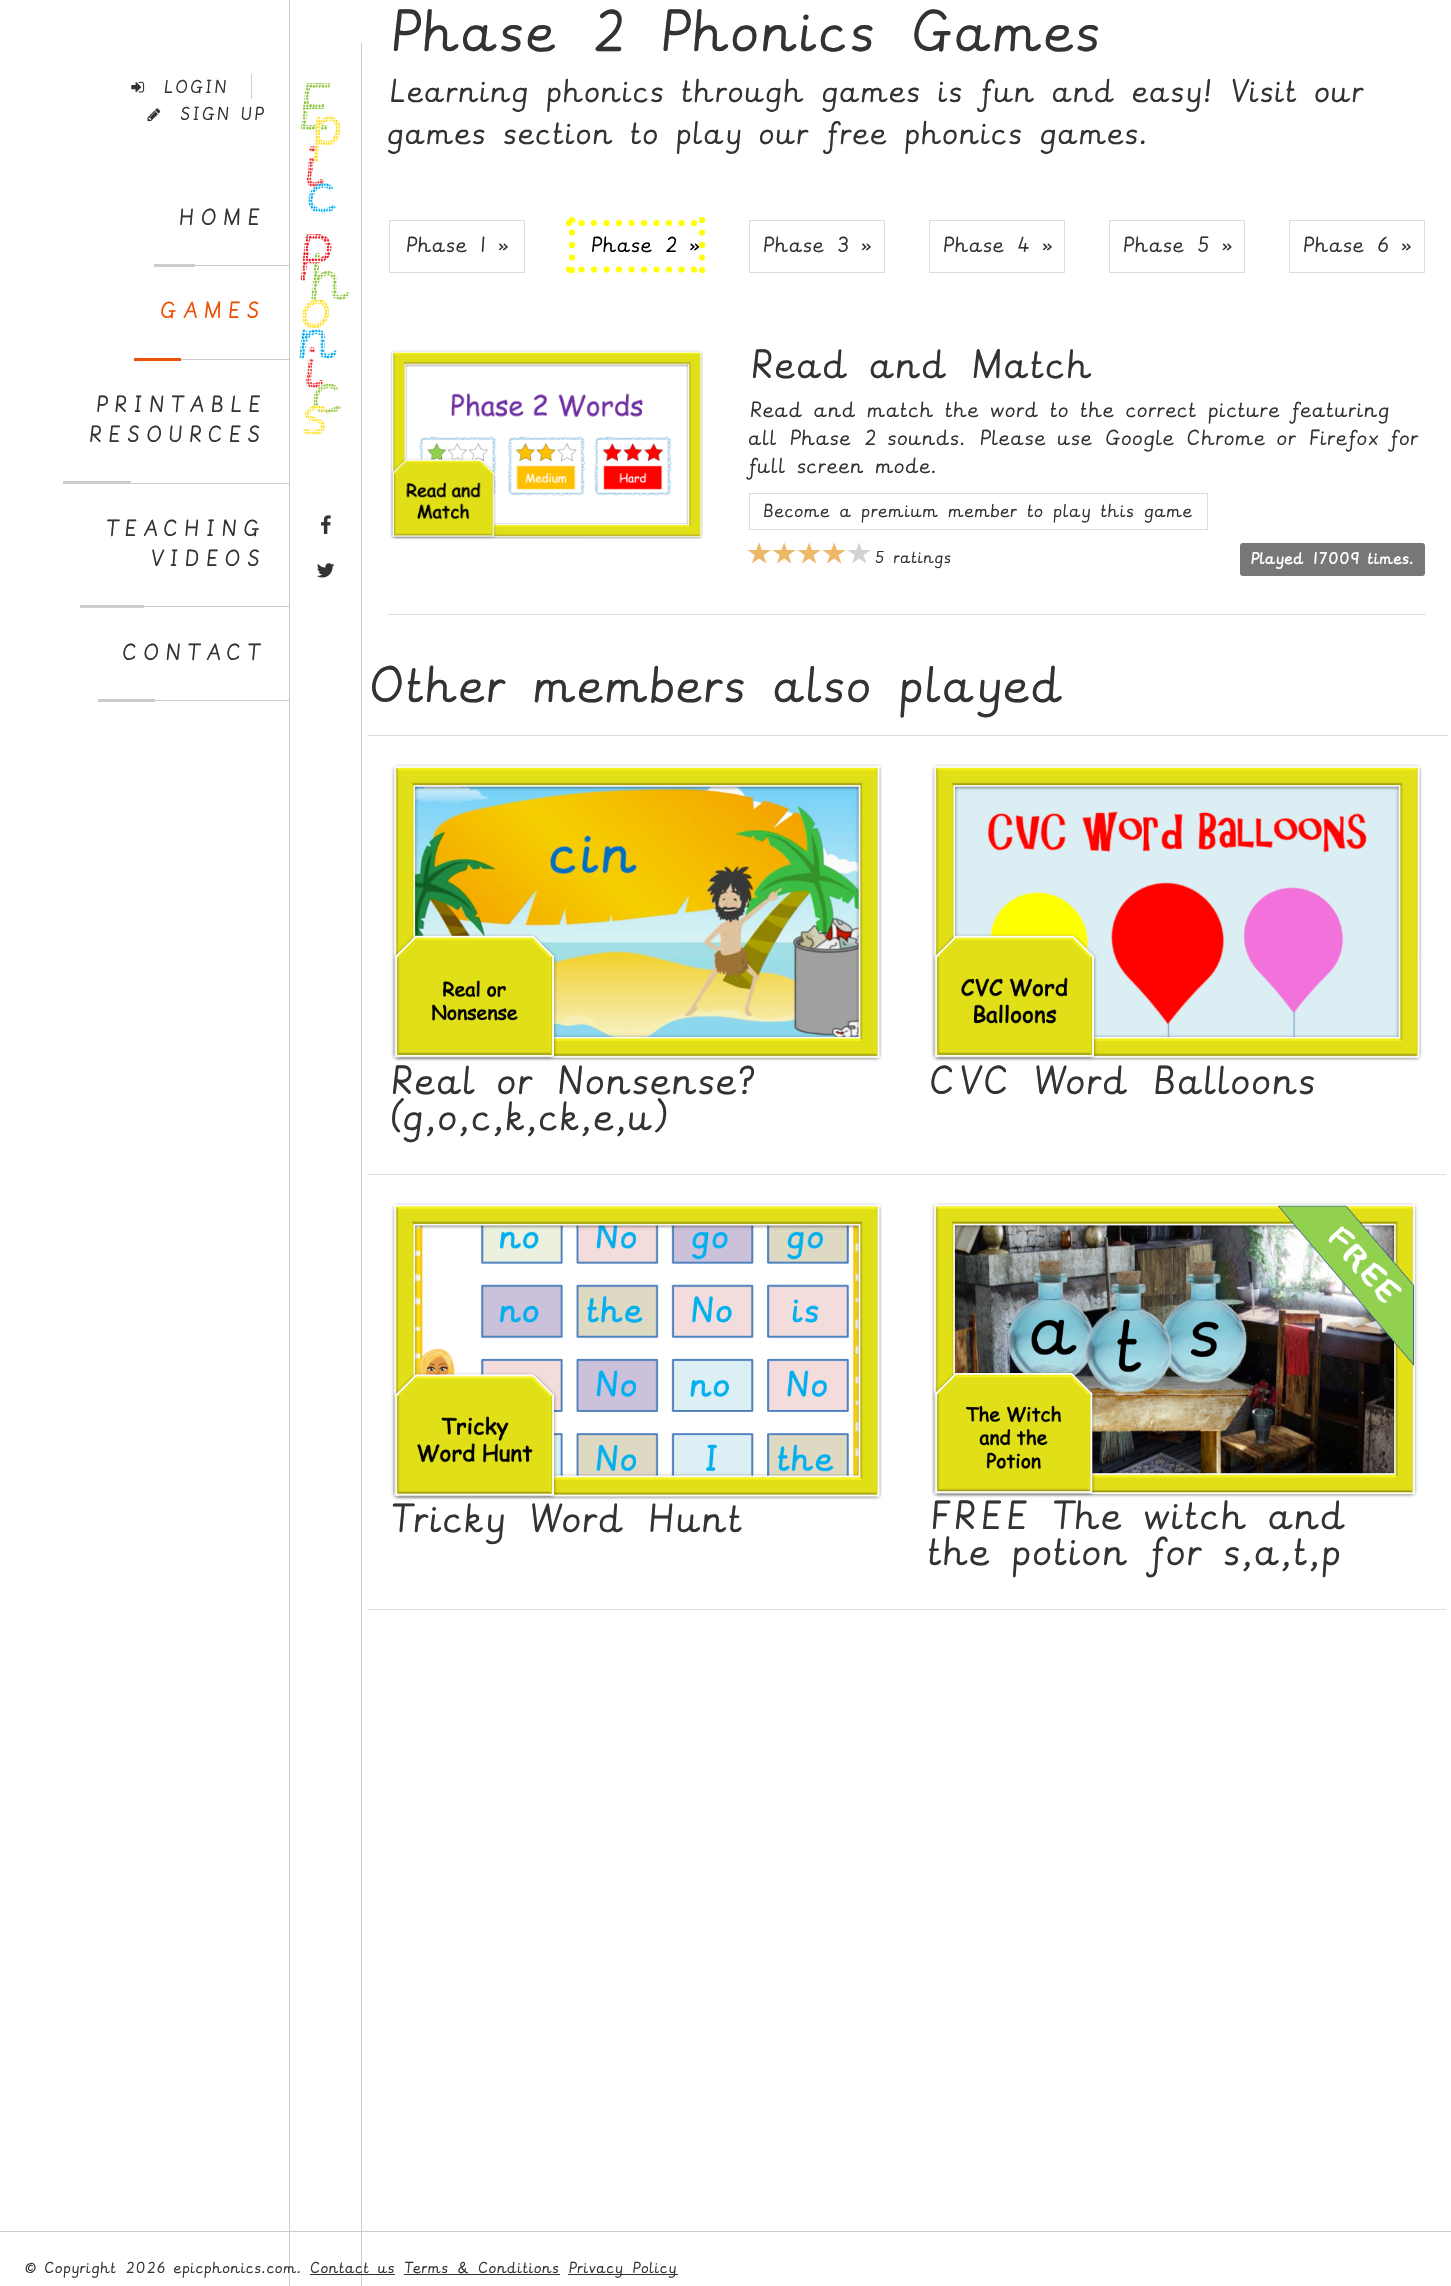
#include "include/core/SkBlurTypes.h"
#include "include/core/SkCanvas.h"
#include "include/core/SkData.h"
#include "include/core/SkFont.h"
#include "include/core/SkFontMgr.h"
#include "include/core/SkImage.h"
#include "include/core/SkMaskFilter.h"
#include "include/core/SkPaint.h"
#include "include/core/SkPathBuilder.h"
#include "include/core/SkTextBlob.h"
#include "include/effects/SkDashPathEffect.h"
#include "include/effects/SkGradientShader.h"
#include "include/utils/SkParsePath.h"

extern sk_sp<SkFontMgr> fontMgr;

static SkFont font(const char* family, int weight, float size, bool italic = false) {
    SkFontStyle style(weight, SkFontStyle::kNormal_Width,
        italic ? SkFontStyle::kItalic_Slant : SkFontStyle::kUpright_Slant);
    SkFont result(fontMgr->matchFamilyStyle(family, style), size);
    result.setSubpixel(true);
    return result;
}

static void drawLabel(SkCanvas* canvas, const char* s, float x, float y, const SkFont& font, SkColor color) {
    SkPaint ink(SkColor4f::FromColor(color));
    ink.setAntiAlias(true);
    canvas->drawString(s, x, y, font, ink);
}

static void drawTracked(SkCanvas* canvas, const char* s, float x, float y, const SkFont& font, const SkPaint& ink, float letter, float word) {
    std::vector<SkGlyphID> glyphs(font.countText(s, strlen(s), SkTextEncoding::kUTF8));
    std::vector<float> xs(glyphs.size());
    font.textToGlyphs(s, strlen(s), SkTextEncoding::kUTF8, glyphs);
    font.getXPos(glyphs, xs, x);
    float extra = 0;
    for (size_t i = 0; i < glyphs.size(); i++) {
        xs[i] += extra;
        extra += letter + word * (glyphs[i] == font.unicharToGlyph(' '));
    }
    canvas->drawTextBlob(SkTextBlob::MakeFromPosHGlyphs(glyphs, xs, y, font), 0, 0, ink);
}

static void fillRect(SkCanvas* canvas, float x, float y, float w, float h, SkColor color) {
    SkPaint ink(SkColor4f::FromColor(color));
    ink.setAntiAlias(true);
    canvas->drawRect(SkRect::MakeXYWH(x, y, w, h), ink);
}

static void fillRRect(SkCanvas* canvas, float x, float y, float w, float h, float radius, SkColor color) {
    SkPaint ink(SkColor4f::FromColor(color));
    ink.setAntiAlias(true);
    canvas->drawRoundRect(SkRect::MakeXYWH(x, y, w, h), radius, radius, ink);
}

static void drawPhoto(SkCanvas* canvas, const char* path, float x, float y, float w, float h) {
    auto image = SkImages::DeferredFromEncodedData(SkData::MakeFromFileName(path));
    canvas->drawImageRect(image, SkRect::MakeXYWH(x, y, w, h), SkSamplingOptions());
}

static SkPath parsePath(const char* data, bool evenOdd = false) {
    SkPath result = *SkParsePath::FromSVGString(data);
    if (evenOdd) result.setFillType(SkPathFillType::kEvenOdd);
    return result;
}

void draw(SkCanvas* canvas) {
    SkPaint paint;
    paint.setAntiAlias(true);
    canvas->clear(0xFFFFFFFF);
    fillRect(canvas, 289, 0, 1, 2231, 0xFFCCCCCC);
    drawPhoto(canvas, "assets/img1.png", 131, 81, 14, 12);
    SkFont font1 = font("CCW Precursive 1", 400, 15);
    drawLabel(canvas, "LOGIN", 163, 93, font1, 0xFF333333);
    fillRect(canvas, 251, 74, 1, 25, 0xFFCCCCCC);
    drawPhoto(canvas, "assets/img2.png", 147, 108, 14, 14);
    drawLabel(canvas, "SIGN UP", 179, 120, font1, 0xFF333333);
    fillRect(canvas, 195, 265, 95, 1, 0xFFCCCCCC);
    SkFont font2 = font("CCW Precursive 1", 400, 18.75f);
    paint.setColor(0xFF333333);
    drawTracked(canvas, "HOME", 178, 225, font2, paint, 3.75f, 0);
    fillRect(canvas, 154, 264, 41, 3, 0xFFCCCCCC);
    fillRect(canvas, 181, 359, 109, 1, 0xFFCCCCCC);
    paint.setColor(0xFFEC5004);
    drawTracked(canvas, "GAMES", 159, 318, font2, paint, 3.75f, 0);
    fillRect(canvas, 134, 358, 47, 3, 0xFFEC5004);
    fillRect(canvas, 131, 483, 159, 1, 0xFFCCCCCC);
    paint.setColor(0xFF333333);
    drawTracked(canvas, "PRINTABLE", 95, 412, font2, paint, 3.75f, 0);
    drawTracked(canvas, "RESOURCES", 88, 442, font2, paint, 3.75f, 0);
    fillRect(canvas, 63, 481, 68, 3, 0xFFCCCCCC);
    fillRect(canvas, 144, 606, 146, 1, 0xFFCCCCCC);
    drawTracked(canvas, "TEACHING", 105, 536, font2, paint, 3.75f, 0);
    drawTracked(canvas, "VIDEOS", 150, 566, font2, paint, 3.75f, 0);
    fillRect(canvas, 80, 605, 64, 3, 0xFFCCCCCC);
    fillRect(canvas, 155, 700, 135, 1, 0xFFCCCCCC);
    drawTracked(canvas, "CONTACT", 122, 660, font2, paint, 3.75f, 0);
    fillRect(canvas, 98, 699, 57, 3, 0xFFCCCCCC);
    fillRect(canvas, 361, 43, 1, 2243, 0xFFCCCCCC);
    drawPhoto(canvas, "assets/img3.png", 299, 83, 51, 352);
    drawPhoto(canvas, "assets/img4.png", 321, 515, 10, 19);
    drawPhoto(canvas, "assets/img5.png", 316, 563, 19, 15);
    SkFont font3 = font("CCW Precursive 1", 400, 47.5f);
    drawLabel(canvas, "Phase 2 Phonics Games", 388, 51, font3, 0xFF333333);
    SkFont font4 = font("CCW Precursive 1", 400, 26.25f);
    drawLabel(canvas, "Learning phonics through games is fun and easy! Visit our", 388, 102, font4, 0xFF333333);
    drawLabel(canvas, "games section to play our free phonics games.", 388, 144, font4, 0xFF333333);
    paint.setStroke(true);
    paint.setStrokeWidth(1);
    paint.setColor(0xFFDDDDDD);
    canvas->drawRect(SkRect::MakeXYWH(389.5f, 220.5f, 135, 52), paint);
    SkFont font5 = font("CCW Precursive 1", 400, 17.5f);
    drawLabel(canvas, "Phase 1 »", 405, 252, font5, 0xFF333333);
    paint.setStrokeWidth(6.2f);
    paint.setStrokeCap(SkPaint::kRound_Cap);
    paint.setColor(0xFFFFFF00);
    paint.setPathEffect(SkDashPathEffect::Make({{0, 12.5f}}, 0));
    canvas->drawPath(parsePath("M569 223H705"), paint);
    paint.setPathEffect(nullptr);
    paint.setPathEffect(SkDashPathEffect::Make({{0, 12.5f}}, 0));
    canvas->drawPath(parsePath("M702 220V272.5"), paint);
    paint.setPathEffect(nullptr);
    paint.setPathEffect(SkDashPathEffect::Make({{0, 12.5f}}, 0));
    canvas->drawPath(parsePath("M569 269.5H705"), paint);
    paint.setPathEffect(nullptr);
    paint.setPathEffect(SkDashPathEffect::Make({{0, 12.5f}}, 0));
    canvas->drawPath(parsePath("M572 220V272.5"), paint);
    paint.setPathEffect(nullptr);
    drawLabel(canvas, "Phase 2 »", 590, 252, font5, 0xFF000000);
    paint.setStrokeWidth(1);
    paint.setStrokeCap(SkPaint::kButt_Cap);
    paint.setColor(0xFFDDDDDD);
    canvas->drawRect(SkRect::MakeXYWH(749.5f, 220.5f, 135, 52), paint);
    drawLabel(canvas, "Phase 3 »", 762, 252, font5, 0xFF333333);
    canvas->drawRect(SkRect::MakeXYWH(929.5f, 220.5f, 135, 52), paint);
    drawLabel(canvas, "Phase 4 »", 942, 252, font5, 0xFF333333);
    canvas->drawRect(SkRect::MakeXYWH(1109.5f, 220.5f, 135, 52), paint);
    drawLabel(canvas, "Phase 5 »", 1122, 252, font5, 0xFF333333);
    canvas->drawRect(SkRect::MakeXYWH(1289.5f, 220.5f, 135, 52), paint);
    drawLabel(canvas, "Phase 6 »", 1302, 252, font5, 0xFF333333);
    drawPhoto(canvas, "assets/img6.png", 390, 350, 313, 190);
    SkFont font6 = font("CCW Precursive 1", 400, 32.5f);
    drawLabel(canvas, "Read and Match", 749, 378, font6, 0xFF333333);
    drawLabel(canvas, "Read and match the word to the correct picture featuring", 749, 417, font5, 0xFF333333);
    drawLabel(canvas, "all Phase 2 sounds. Please use Google Chrome or Firefox for", 749, 445, font5, 0xFF333333);
    drawLabel(canvas, "full screen mode.", 749, 473, font5, 0xFF333333);
    canvas->drawRect(SkRect::MakeXYWH(749.5f, 493.5f, 458, 36), paint);
    drawLabel(canvas, "Become a premium member to play this game", 762, 517, font1, 0xFF333333);
    drawPhoto(canvas, "assets/img7.png", 747, 542, 24, 22);
    drawPhoto(canvas, "assets/img7.png", 772, 542, 24, 22);
    drawPhoto(canvas, "assets/img7.png", 797, 542, 24, 22);
    drawPhoto(canvas, "assets/img7.png", 822, 542, 24, 22);
    drawPhoto(canvas, "assets/img8.png", 847, 542, 24, 22);
    SkFont font7 = font("CCW Precursive 1", 400, 13.75f);
    drawLabel(canvas, "5 ratings", 874, 563, font7, 0xFF333333);
    fillRRect(canvas, 1240, 543, 185, 33, 3, 0xFF777777);
    SkFont font8 = font("CCW Precursive 1", 700, 13.1f);
    drawLabel(canvas, "Played 17009 times.", 1250, 564, font8, 0xFFFFFFFF);
    fillRect(canvas, 388, 614, 1038, 1, 0xFFDDDDDD);
    SkFont font9 = font("CCW Precursive 1", 400, 41.25f);
    drawLabel(canvas, "Other members also played", 367, 702, font9, 0xFF333333);
    fillRect(canvas, 368, 735, 1080, 1, 0xFFDDDDDD);
    drawPhoto(canvas, "assets/img9.png", 391, 764, 491, 297);
    drawLabel(canvas, "Real or Nonsense?", 389, 1094, font6, 0xFF333333);
    drawLabel(canvas, "(g,o,c,k,ck,e,u)", 389, 1130, font6, 0xFF333333);
    drawPhoto(canvas, "assets/img10.png", 931, 764, 491, 297);
    drawLabel(canvas, "CVC Word Balloons", 929, 1094, font6, 0xFF333333);
    fillRect(canvas, 368, 1174, 1078, 1, 0xFFDDDDDD);
    drawPhoto(canvas, "assets/img11.png", 391, 1203, 491, 297);
    drawLabel(canvas, "Tricky Word Hunt", 389, 1532, font6, 0xFF333333);
    drawPhoto(canvas, "assets/img12.png", 931, 1203, 487, 295);
    drawLabel(canvas, "FREE The witch and", 929, 1529, font6, 0xFF333333);
    drawLabel(canvas, "the potion for s,a,t,p", 929, 1565, font6, 0xFF333333);
    fillRect(canvas, 368, 1609, 1078, 1, 0xFFDDDDDD);
    fillRect(canvas, 289, 2232, 1, 54, 0xFFCCCCCC);
    fillRect(canvas, 0, 2231, 1451, 1, 0xFFCCCCCC);
    SkFont font10 = font("CCW Precursive 1", 400, 12.75f);
    drawLabel(canvas, "© Copyright 2026 epicphonics.com.", 25, 2273, font10, 0xFF333333);
    drawLabel(canvas, "Contact us Terms & Conditions", 310, 2273, font10, 0xFF333333);
    fillRect(canvas, 310, 2274, 85, 1, 0xFF333333);
    fillRect(canvas, 568, 2274, 110, 1, 0xFF333333);
    drawLabel(canvas, "Privacy Policy", 568, 2273, font10, 0xFF333333);
    fillRect(canvas, 404, 2274, 156, 1, 0xFF333333);
}
